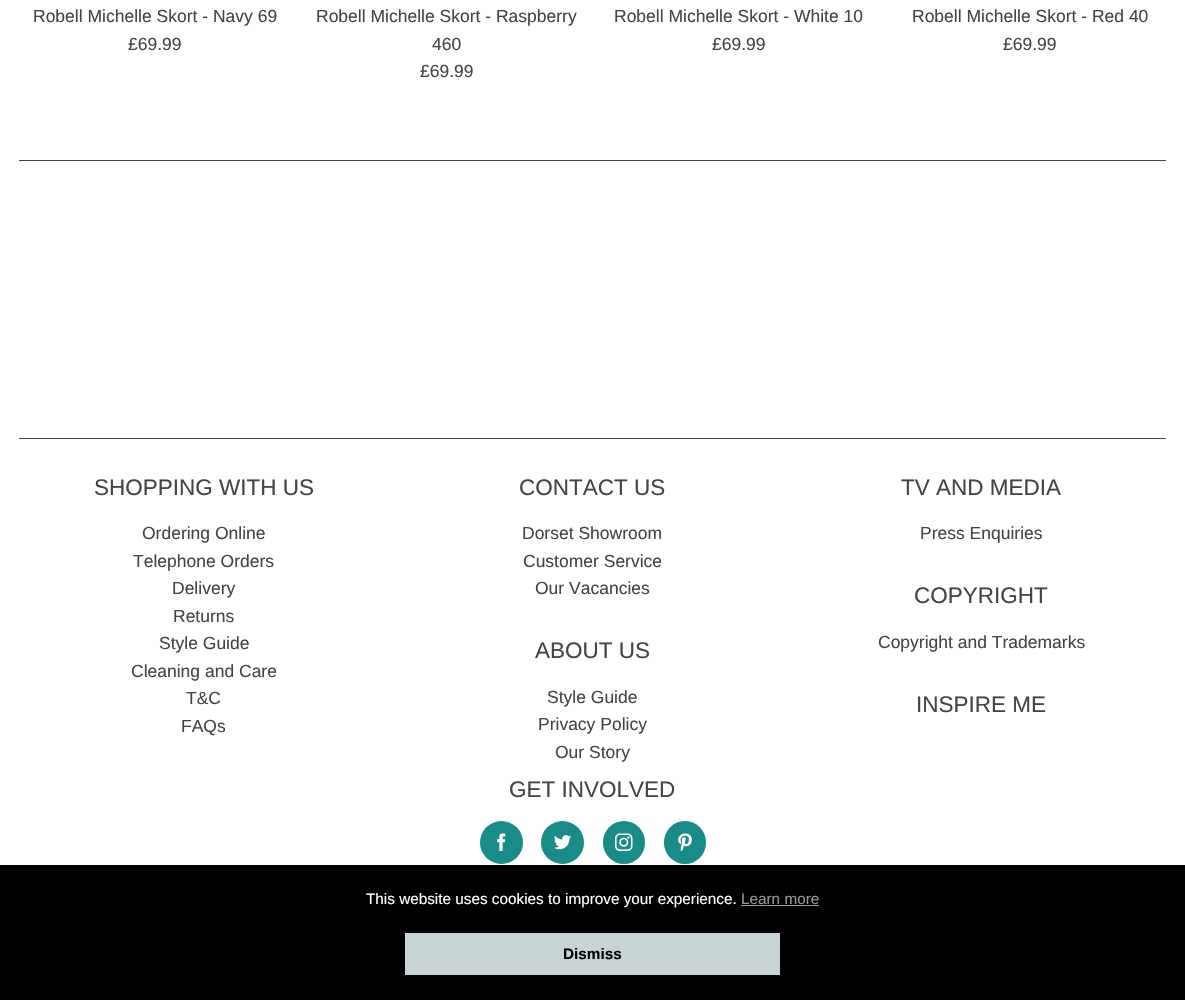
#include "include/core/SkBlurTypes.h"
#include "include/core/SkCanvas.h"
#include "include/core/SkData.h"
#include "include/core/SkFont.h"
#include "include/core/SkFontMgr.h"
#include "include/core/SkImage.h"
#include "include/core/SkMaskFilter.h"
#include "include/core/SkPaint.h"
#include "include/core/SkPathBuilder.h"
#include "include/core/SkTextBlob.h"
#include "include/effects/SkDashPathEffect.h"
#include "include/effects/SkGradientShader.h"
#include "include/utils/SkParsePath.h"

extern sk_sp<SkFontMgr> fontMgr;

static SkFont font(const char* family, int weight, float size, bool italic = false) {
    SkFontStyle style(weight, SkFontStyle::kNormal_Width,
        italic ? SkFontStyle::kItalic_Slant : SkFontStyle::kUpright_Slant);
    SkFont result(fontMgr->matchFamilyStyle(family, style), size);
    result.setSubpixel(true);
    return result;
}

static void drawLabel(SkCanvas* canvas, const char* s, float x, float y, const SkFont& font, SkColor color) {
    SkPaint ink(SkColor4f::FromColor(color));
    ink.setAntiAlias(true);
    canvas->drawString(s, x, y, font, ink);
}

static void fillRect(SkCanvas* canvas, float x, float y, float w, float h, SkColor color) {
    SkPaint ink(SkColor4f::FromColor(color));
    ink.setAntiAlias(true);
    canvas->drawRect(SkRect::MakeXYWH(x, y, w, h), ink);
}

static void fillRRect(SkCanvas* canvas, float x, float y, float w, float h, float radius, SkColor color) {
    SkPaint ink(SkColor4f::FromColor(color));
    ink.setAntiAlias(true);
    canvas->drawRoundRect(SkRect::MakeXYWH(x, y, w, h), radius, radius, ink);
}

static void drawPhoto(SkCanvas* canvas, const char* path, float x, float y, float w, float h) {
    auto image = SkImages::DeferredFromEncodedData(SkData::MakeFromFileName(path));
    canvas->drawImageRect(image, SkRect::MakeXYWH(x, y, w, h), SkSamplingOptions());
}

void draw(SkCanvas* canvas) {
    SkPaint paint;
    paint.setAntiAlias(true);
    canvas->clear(0xFFFFFFFF);
    SkFont font1 = font("Liberation Sans", 400, 17.5f);
    drawLabel(canvas, "Robell Michelle Skort - Navy 69", 33, 22, font1, 0xFF444444);
    drawLabel(canvas, "£69.99", 128, 50, font1, 0xFF444444);
    drawLabel(canvas, "Robell Michelle Skort - Raspberry", 316, 22, font1, 0xFF444444);
    drawLabel(canvas, "460", 432, 50, font1, 0xFF444444);
    drawLabel(canvas, "£69.99", 420, 77, font1, 0xFF444444);
    drawLabel(canvas, "Robell Michelle Skort - White 10", 614, 22, font1, 0xFF444444);
    drawLabel(canvas, "£69.99", 712, 50, font1, 0xFF444444);
    drawLabel(canvas, "Robell Michelle Skort - Red 40", 912, 22, font1, 0xFF444444);
    drawLabel(canvas, "£69.99", 1003, 50, font1, 0xFF444444);
    fillRect(canvas, 19, 160, 1147, 1, 0xFF444444);
    fillRect(canvas, 19, 438, 1147, 1, 0xFF444444);
    SkFont font2 = font("Liberation Sans", 400, 22.5f);
    drawLabel(canvas, "SHOPPING WITH US", 94, 495, font2, 0xFF444444);
    drawLabel(canvas, "Ordering Online", 142, 539, font1, 0xFF444444);
    drawLabel(canvas, "Telephone Orders", 133, 567, font1, 0xFF444444);
    drawLabel(canvas, "Delivery", 172, 594, font1, 0xFF444444);
    drawLabel(canvas, "Returns", 173, 622, font1, 0xFF444444);
    drawLabel(canvas, "Style Guide", 159, 649, font1, 0xFF444444);
    drawLabel(canvas, "Cleaning and Care", 131, 677, font1, 0xFF444444);
    drawLabel(canvas, "T&C", 186, 704, font1, 0xFF444444);
    drawLabel(canvas, "FAQs", 181, 732, font1, 0xFF444444);
    drawLabel(canvas, "CONTACT US", 519, 495, font2, 0xFF444444);
    drawLabel(canvas, "Dorset Showroom", 522, 539, font1, 0xFF444444);
    drawLabel(canvas, "Customer Service", 523, 567, font1, 0xFF444444);
    drawLabel(canvas, "Our Vacancies", 535, 594, font1, 0xFF444444);
    drawLabel(canvas, "TV AND MEDIA", 901, 495, font2, 0xFF444444);
    drawLabel(canvas, "Press Enquiries", 920, 539, font1, 0xFF444444);
    drawLabel(canvas, "COPYRIGHT", 914, 603, font2, 0xFF444444);
    drawLabel(canvas, "Copyright and Trademarks", 878, 648, font1, 0xFF444444);
    drawLabel(canvas, "ABOUT US", 535, 658, font2, 0xFF444444);
    drawLabel(canvas, "Style Guide", 547, 703, font1, 0xFF444444);
    drawLabel(canvas, "Privacy Policy", 538, 730, font1, 0xFF444444);
    drawLabel(canvas, "Our Story", 555, 758, font1, 0xFF444444);
    drawLabel(canvas, "INSPIRE ME", 916, 712, font2, 0xFF444444);
    drawLabel(canvas, "GET INVOLVED", 509, 797, font2, 0xFF444444);
    paint.setColor(0xFF198B89);
    canvas->drawCircle(501.5f, 842.5f, 21.5f, paint);
    drawPhoto(canvas, "assets/img1.png", 497, 833, 9, 18);
    canvas->drawCircle(562.5f, 842.5f, 21.5f, paint);
    drawPhoto(canvas, "assets/img2.png", 554, 835, 18, 15);
    fillRRect(canvas, 603, 821, 42, 43, 21, 0xFF198B89);
    drawPhoto(canvas, "assets/img3.png", 615, 833, 18, 18);
    fillRRect(canvas, 664, 821, 42, 43, 21, 0xFF198B89);
    drawPhoto(canvas, "assets/img4.png", 678, 833, 14, 18);
    fillRect(canvas, 0, 865, 1185, 135, 0xFF000000);
    SkFont font3 = font("Liberation Sans", 400, 15.3f);
    drawLabel(canvas, "This website uses cookies to improve your experience.", 366, 904, font3, 0xFFFFFFFF);
    drawLabel(canvas, "Learn more", 741, 904, font3, 0xFF999999);
    fillRect(canvas, 741, 905, 78, 1, 0xFF999999);
    fillRect(canvas, 405, 933, 375, 42, 0xFFC7D3D4);
    SkFont font4 = font("Liberation Sans", 700, 15.3f);
    drawLabel(canvas, "Dismiss", 563, 959, font4, 0xFF000000);
}
